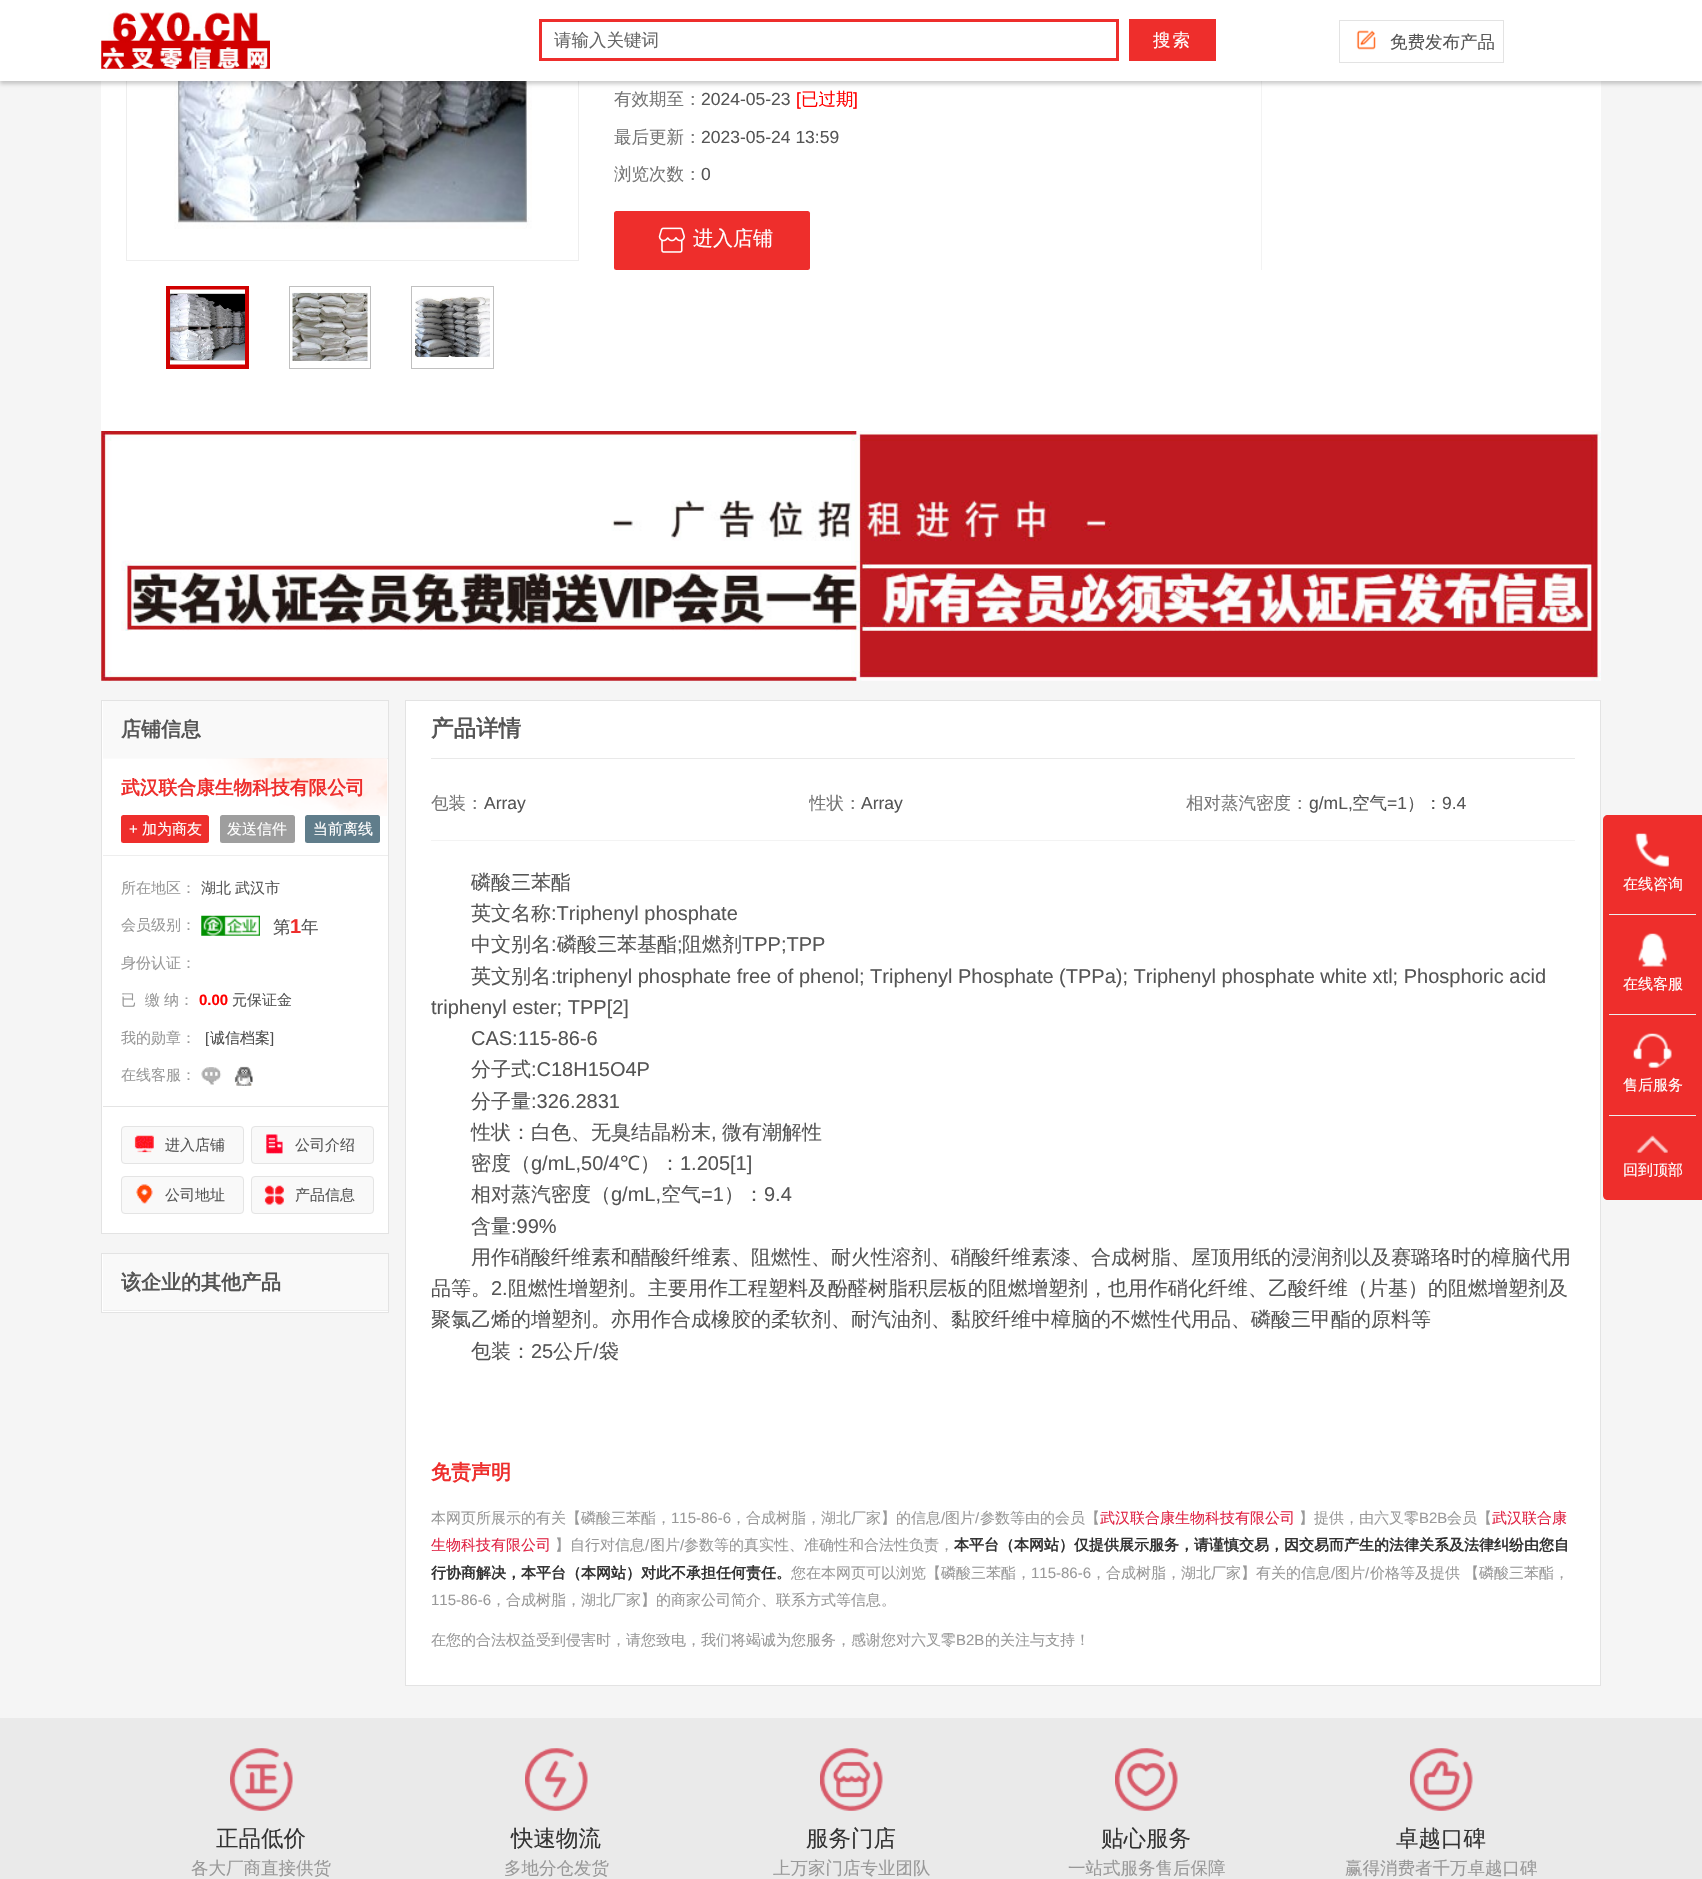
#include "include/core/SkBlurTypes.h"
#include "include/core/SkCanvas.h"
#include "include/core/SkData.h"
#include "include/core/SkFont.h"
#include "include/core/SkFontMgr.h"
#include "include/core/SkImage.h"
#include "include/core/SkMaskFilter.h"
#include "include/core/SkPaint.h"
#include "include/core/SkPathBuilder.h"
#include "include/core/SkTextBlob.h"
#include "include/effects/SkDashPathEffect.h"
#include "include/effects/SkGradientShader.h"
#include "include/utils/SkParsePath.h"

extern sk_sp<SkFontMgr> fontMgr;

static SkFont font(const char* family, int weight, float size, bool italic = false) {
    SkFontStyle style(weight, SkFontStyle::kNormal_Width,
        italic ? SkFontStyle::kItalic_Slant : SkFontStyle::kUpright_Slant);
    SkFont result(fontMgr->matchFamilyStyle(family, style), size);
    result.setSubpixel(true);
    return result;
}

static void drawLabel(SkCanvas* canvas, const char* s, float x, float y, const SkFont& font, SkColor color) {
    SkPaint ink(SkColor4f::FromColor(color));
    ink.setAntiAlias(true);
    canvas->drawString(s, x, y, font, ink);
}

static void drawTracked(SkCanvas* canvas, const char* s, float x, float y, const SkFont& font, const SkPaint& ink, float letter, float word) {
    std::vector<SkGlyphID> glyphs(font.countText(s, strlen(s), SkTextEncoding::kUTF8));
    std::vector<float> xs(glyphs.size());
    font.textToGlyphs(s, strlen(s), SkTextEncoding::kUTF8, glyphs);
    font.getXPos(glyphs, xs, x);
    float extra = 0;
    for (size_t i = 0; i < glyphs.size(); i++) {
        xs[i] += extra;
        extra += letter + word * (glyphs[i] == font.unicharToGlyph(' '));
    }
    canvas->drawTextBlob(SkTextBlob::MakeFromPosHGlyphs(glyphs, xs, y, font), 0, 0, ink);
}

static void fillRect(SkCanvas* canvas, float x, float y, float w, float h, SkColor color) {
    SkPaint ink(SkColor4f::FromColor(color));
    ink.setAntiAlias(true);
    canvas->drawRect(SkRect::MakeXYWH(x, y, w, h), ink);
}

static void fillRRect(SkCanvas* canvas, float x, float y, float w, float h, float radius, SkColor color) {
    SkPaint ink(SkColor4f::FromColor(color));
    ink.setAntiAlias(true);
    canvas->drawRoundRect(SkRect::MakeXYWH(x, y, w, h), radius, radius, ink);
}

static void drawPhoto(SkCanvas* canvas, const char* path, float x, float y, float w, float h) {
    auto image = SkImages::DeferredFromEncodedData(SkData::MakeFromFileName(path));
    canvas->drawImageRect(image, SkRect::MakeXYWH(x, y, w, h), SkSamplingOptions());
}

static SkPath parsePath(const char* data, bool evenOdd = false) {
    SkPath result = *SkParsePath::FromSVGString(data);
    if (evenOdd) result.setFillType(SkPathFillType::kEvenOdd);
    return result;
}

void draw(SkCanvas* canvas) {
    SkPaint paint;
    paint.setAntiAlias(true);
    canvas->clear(0xFFF5F5F5);
    fillRect(canvas, 101, 81, 1500, 350, 0xFFFFFFFF);
    paint.setStroke(true);
    paint.setStrokeWidth(1);
    paint.setColor(0xFFEEEEEE);
    canvas->drawRect(SkRect::MakeXYWH(126.5f, -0.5f, 452, 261), paint);
    drawPhoto(canvas, "assets/img7.png", 174, 81, 358, 148);
    fillRect(canvas, 1261, 81, 1, 189, 0xFFF3F3F3);
    paint.setStroke(false);
    paint.setColor(0x33000000);
    paint.setMaskFilter(SkMaskFilter::MakeBlur(kNormal_SkBlurStyle, 2));
    canvas->drawRect(SkRect::MakeXYWH(0, 3, 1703, 81), paint);
    paint.setMaskFilter(nullptr);
    fillRect(canvas, 0, 0, 1702, 81, 0xFFFFFFFF);
    drawPhoto(canvas, "assets/img1.png", 101, 12, 169, 57);
    paint.setStroke(true);
    paint.setStrokeWidth(3);
    paint.setColor(0xFFEE2E2C);
    canvas->drawRect(SkRect::MakeXYWH(540.5f, 20.5f, 577, 39), paint);
    SkFont font1 = font("WenQuanYi Zen Hei", 500, 17.5f);
    drawLabel(canvas, "请输入关键词", 554, 46, font1, 0xFF666666);
    fillRect(canvas, 1129, 19, 87, 42, 0xFFEE2E2C);
    paint.setStroke(false);
    paint.setColor(0xFFFFFFFF);
    drawTracked(canvas, "搜索", 1153, 46, font1, paint, 2, 0);
    drawPhoto(canvas, "assets/img2.png", 1356, 30, 20, 20);
    paint.setStroke(true);
    paint.setStrokeWidth(1);
    paint.setColor(0xFFE3E3E3);
    canvas->drawRect(SkRect::MakeXYWH(1339.5f, 20.5f, 164, 42), paint);
    drawLabel(canvas, "免费发布产品", 1390, 48, font1, 0xFF555555);
    paint.setStroke(false);
    paint.setColor(0xFFEE2E2C);
    canvas->drawPath(parsePath("M1608 815H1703V1200H1608C1605 1200 1603 1198 1603 1195V820C1603 817 1605 815 1608 815Z"), paint);
    drawPhoto(canvas, "assets/img3.png", 1635, 833, 34, 34);
    SkFont font2 = font("WenQuanYi Zen Hei", 500, 15);
    drawLabel(canvas, "在线咨询", 1623, 889, font2, 0xFFFFFFFF);
    fillRect(canvas, 1609, 914, 87, 1, 0xFFEEEEEE);
    drawPhoto(canvas, "assets/img4.png", 1638, 933, 29, 34);
    drawLabel(canvas, "在线客服", 1623, 989, font2, 0xFFFFFFFF);
    fillRect(canvas, 1609, 1014, 87, 1, 0xFFEEEEEE);
    drawPhoto(canvas, "assets/img5.png", 1633, 1033, 39, 35);
    drawLabel(canvas, "售后服务", 1623, 1090, font2, 0xFFFFFFFF);
    fillRect(canvas, 1609, 1115, 87, 1, 0xFFEEEEEE);
    drawPhoto(canvas, "assets/img6.png", 1636, 1135, 32, 18);
    drawLabel(canvas, "回到顶部", 1623, 1175, font2, 0xFFFFFFFF);
    fillRect(canvas, 166, 286, 83, 83, 0xFFD10000);
    paint.setStroke(true);
    paint.setColor(0xFFC0C0C0);
    canvas->drawRect(SkRect::MakeXYWH(289.5f, 286.5f, 81, 82), paint);
    canvas->drawRect(SkRect::MakeXYWH(411.5f, 286.5f, 82, 82), paint);
    drawPhoto(canvas, "assets/img8.png", 170, 289, 75, 76);
    drawPhoto(canvas, "assets/img9.png", 292, 292, 76, 69);
    drawPhoto(canvas, "assets/img10.png", 415, 296, 75, 62);
    drawLabel(canvas, "有效期至：", 614, 105, font1, 0xFF777777);
    SkFont font3 = font("Liberation Sans", 400, 17.5f);
    drawLabel(canvas, "2024-05-23", 701, 105, font3, 0xFF555555);
    drawLabel(canvas, "[", 796, 105, font3, 0xFFFF0000);
    drawLabel(canvas, "已过期", 801, 105, font1, 0xFFFF0000);
    drawLabel(canvas, "]", 853, 105, font3, 0xFFFF0000);
    drawLabel(canvas, "最后更新：", 614, 143, font1, 0xFF777777);
    drawLabel(canvas, "2023-05-24 13:59", 701, 143, font3, 0xFF555555);
    drawLabel(canvas, "浏览次数：", 614, 180, font1, 0xFF777777);
    drawLabel(canvas, "0", 701, 180, font3, 0xFF555555);
    fillRRect(canvas, 614, 211, 196, 59, 2.5f, 0xFFEE2E2C);
    drawPhoto(canvas, "assets/img11.png", 658, 227, 27, 26);
    SkFont font4 = font("WenQuanYi Zen Hei", 500, 20);
    drawLabel(canvas, "进入店铺", 693, 245, font4, 0xFFFFFFFF);
    drawPhoto(canvas, "assets/img12.png", 101, 431, 1500, 250);
    paint.setStroke(false);
    paint.setColor(0xFFFFFFFF);
    canvas->drawRect(SkRect::MakeXYWH(101.5f, 700.5f, 287, 533), paint);
    paint.setStroke(true);
    paint.setColor(0xFFE3E3E3);
    canvas->drawRect(SkRect::MakeXYWH(101.5f, 700.5f, 287, 533), paint);
    fillRect(canvas, 103, 701, 285, 57, 0xFFF9F9F9);
    fillRect(canvas, 103, 758, 285, 1, 0xFFEEEEEE);
    SkFont font5 = font("WenQuanYi Zen Hei", 700, 20);
    drawLabel(canvas, "店铺信息", 121, 736, font5, 0xFF555555);
    drawPhoto(canvas, "assets/img13.png", 103, 758, 285, 58);
    fillRect(canvas, 103, 855, 285, 1, 0xFFEEEEEE);
    SkFont font6 = font("WenQuanYi Zen Hei", 700, 18.75f);
    drawLabel(canvas, "武汉联合康生物科技有限公司", 121, 794, font6, 0xFFEE2E2C);
    fillRRect(canvas, 121, 815, 88, 28, 2.5f, 0xFFEE2E2C);
    SkFont font7 = font("Liberation Sans", 400, 15);
    drawLabel(canvas, "+", 129, 834, font7, 0xFFFFFFFF);
    drawLabel(canvas, "加为商友", 142, 834, font2, 0xFFFFFFFF);
    fillRRect(canvas, 220, 815, 75, 28, 2.5f, 0xFF9E9E9E);
    drawLabel(canvas, "发送信件", 227, 834, font2, 0xFFFFFFFF);
    fillRRect(canvas, 305, 815, 75, 28, 2.5f, 0xFF607D8B);
    drawLabel(canvas, "当前离线", 313, 834, font2, 0xFFFFFFFF);
    drawLabel(canvas, "所在地区：", 121, 893, font2, 0xFF999999);
    drawLabel(canvas, "湖北", 201, 893, font2, 0xFF555555);
    drawLabel(canvas, "武汉市", 235, 893, font2, 0xFF555555);
    drawLabel(canvas, "会员级别：", 121, 930, font2, 0xFF999999);
    drawPhoto(canvas, "assets/img14.png", 201, 915, 59, 21);
    drawLabel(canvas, "第", 273, 933, font1, 0xFF555555);
    SkFont font8 = font("Liberation Sans", 700, 20);
    drawLabel(canvas, "1", 290, 933, font8, 0xFFEE2E2C);
    drawLabel(canvas, "年", 301, 933, font1, 0xFF555555);
    drawLabel(canvas, "身份认证：", 121, 968, font2, 0xFF999999);
    drawLabel(canvas, "已", 121, 1005, font2, 0xFF999999);
    drawLabel(canvas, "缴", 145, 1005, font2, 0xFF999999);
    drawLabel(canvas, "纳：", 164, 1005, font2, 0xFF999999);
    SkFont font9 = font("Liberation Sans", 700, 15);
    drawLabel(canvas, "0.00", 199, 1005, font9, 0xFFFF0000);
    drawLabel(canvas, "元保证金", 232, 1005, font2, 0xFF555555);
    drawLabel(canvas, "我的勋章：", 121, 1043, font2, 0xFF999999);
    drawLabel(canvas, "[", 205, 1043, font7, 0xFF4C4C4C);
    drawLabel(canvas, "诚信档案", 210, 1043, font2, 0xFF4C4C4C);
    drawLabel(canvas, "]", 270, 1043, font7, 0xFF4C4C4C);
    drawLabel(canvas, "在线客服：", 121, 1080, font2, 0xFF999999);
    drawPhoto(canvas, "assets/img15.png", 201, 1067, 21, 18);
    drawPhoto(canvas, "assets/img16.png", 234, 1066, 19, 20);
    fillRect(canvas, 103, 1106, 285, 1, 0xFFE4E4E4);
    fillRRect(canvas, 121, 1126, 123, 38, 4, 0xFFF9F9F9);
    drawPhoto(canvas, "assets/img17.png", 134, 1135, 20, 18);
    paint.setColor(0xFFE4E4E4);
    canvas->drawRoundRect(SkRect::MakeXYWH(121.5f, 1126.5f, 122, 37), 3.5f, 3.5f, paint);
    drawLabel(canvas, "进入店铺", 165, 1150, font2, 0xFF555555);
    fillRRect(canvas, 251, 1126, 123, 38, 4, 0xFFF9F9F9);
    drawPhoto(canvas, "assets/img18.png", 266, 1134, 17, 20);
    canvas->drawRoundRect(SkRect::MakeXYWH(251.5f, 1126.5f, 122, 37), 3.5f, 3.5f, paint);
    drawLabel(canvas, "公司介绍", 295, 1150, font2, 0xFF555555);
    fillRRect(canvas, 121, 1176, 123, 38, 4, 0xFFF9F9F9);
    drawPhoto(canvas, "assets/img19.png", 136, 1184, 17, 20);
    canvas->drawRoundRect(SkRect::MakeXYWH(121.5f, 1176.5f, 122, 37), 3.5f, 3.5f, paint);
    drawLabel(canvas, "公司地址", 165, 1200, font2, 0xFF555555);
    fillRRect(canvas, 251, 1176, 123, 38, 4, 0xFFF9F9F9);
    drawPhoto(canvas, "assets/img20.png", 264, 1185, 20, 20);
    canvas->drawRoundRect(SkRect::MakeXYWH(251.5f, 1176.5f, 122, 37), 3.5f, 3.5f, paint);
    drawLabel(canvas, "产品信息", 295, 1200, font2, 0xFF555555);
    paint.setStroke(false);
    paint.setColor(0xFFFFFFFF);
    canvas->drawRect(SkRect::MakeXYWH(101.5f, 1253.5f, 287, 59), paint);
    paint.setStroke(true);
    paint.setColor(0xFFE3E3E3);
    canvas->drawRect(SkRect::MakeXYWH(101.5f, 1253.5f, 287, 59), paint);
    fillRect(canvas, 103, 1254, 285, 56, 0xFFF9F9F9);
    fillRect(canvas, 103, 1310, 285, 1, 0xFFEEEEEE);
    drawLabel(canvas, "该企业的其他产品", 121, 1289, font5, 0xFF555555);
    paint.setStroke(false);
    paint.setColor(0xFFFFFFFF);
    canvas->drawRect(SkRect::MakeXYWH(405.5f, 700.5f, 1195, 985), paint);
    paint.setStroke(true);
    paint.setColor(0xFFE3E3E3);
    canvas->drawRect(SkRect::MakeXYWH(405.5f, 700.5f, 1195, 985), paint);
    fillRect(canvas, 431, 758, 1144, 1, 0xFFE9E9E9);
    SkFont font10 = font("WenQuanYi Zen Hei", 700, 22.5f);
    drawLabel(canvas, "产品详情", 431, 736, font10, 0xFF555555);
    fillRect(canvas, 431, 840, 1144, 1, 0xFFF3F3F3);
    drawLabel(canvas, "包装：", 431, 809, font1, 0xFF777777);
    drawLabel(canvas, "Array", 484, 809, font3, 0xFF555555);
    canvas->save();
    canvas->clipRect(SkRect::MakeXYWH(809, 784, 377, 37));
    drawLabel(canvas, "性状：", 809, 809, font1, 0xFF777777);
    canvas->restore();
    drawLabel(canvas, "Array", 861, 809, font3, 0xFF555555);
    drawLabel(canvas, "相对蒸汽密度：", 1186, 809, font1, 0xFF777777);
    drawLabel(canvas, "g/mL,", 1309, 809, font3, 0xFF555555);
    drawLabel(canvas, "空气", 1352, 809, font1, 0xFF555555);
    drawLabel(canvas, "=1", 1387, 809, font3, 0xFF555555);
    drawLabel(canvas, "）：", 1407, 809, font1, 0xFF555555);
    drawLabel(canvas, "9.4", 1442, 809, font3, 0xFF555555);
    drawLabel(canvas, "磷酸三苯酯", 471, 889, font4, 0xFF555555);
    drawLabel(canvas, "英文名称", 471, 920, font4, 0xFF555555);
    SkFont font11 = font("Liberation Sans", 400, 20);
    drawLabel(canvas, ":Triphenyl phosphate", 551, 920, font11, 0xFF555555);
    drawLabel(canvas, "中文别名", 471, 951, font4, 0xFF555555);
    drawLabel(canvas, ":", 551, 951, font11, 0xFF555555);
    drawLabel(canvas, "磷酸三苯基酯", 557, 951, font4, 0xFF555555);
    drawLabel(canvas, ";", 677, 951, font11, 0xFF555555);
    drawLabel(canvas, "阻燃剂", 682, 951, font4, 0xFF555555);
    drawLabel(canvas, "TPP;TPP", 742, 951, font11, 0xFF555555);
    drawLabel(canvas, "英文别名", 471, 983, font4, 0xFF555555);
    drawLabel(canvas, ":triphenyl phosphate free of phenol; Triphenyl Phosphate (TPPa); Triphenyl phosphate white xtl; Phosphoric acid", 551, 983, font11, 0xFF555555);
    drawLabel(canvas, "triphenyl ester; TPP[2]", 431, 1014, font11, 0xFF555555);
    drawLabel(canvas, "CAS:115-86-6", 471, 1045, font11, 0xFF555555);
    drawLabel(canvas, "分子式", 471, 1076, font4, 0xFF555555);
    drawLabel(canvas, ":C18H15O4P", 531, 1076, font11, 0xFF555555);
    drawLabel(canvas, "分子量", 471, 1108, font4, 0xFF555555);
    drawLabel(canvas, ":326.2831", 531, 1108, font11, 0xFF555555);
    drawLabel(canvas, "性状：白色、无臭结晶粉末", 471, 1139, font4, 0xFF555555);
    drawLabel(canvas, ",", 711, 1139, font11, 0xFF555555);
    drawLabel(canvas, "微有潮解性", 722, 1139, font4, 0xFF555555);
    drawLabel(canvas, "密度（", 471, 1170, font4, 0xFF555555);
    drawLabel(canvas, "g/mL,50/4", 531, 1170, font11, 0xFF555555);
    SkFont font12 = font("Noto Sans", 400, 20);
    drawLabel(canvas, "℃", 620, 1170, font12, 0xFF555555);
    drawLabel(canvas, "）：", 640, 1170, font4, 0xFF555555);
    drawLabel(canvas, "1.205[1]", 680, 1170, font11, 0xFF555555);
    drawLabel(canvas, "相对蒸汽密度（", 471, 1201, font4, 0xFF555555);
    drawLabel(canvas, "g/mL,", 611, 1201, font11, 0xFF555555);
    drawLabel(canvas, "空气", 661, 1201, font4, 0xFF555555);
    drawLabel(canvas, "=1", 701, 1201, font11, 0xFF555555);
    drawLabel(canvas, "）：", 724, 1201, font4, 0xFF555555);
    drawLabel(canvas, "9.4", 764, 1201, font11, 0xFF555555);
    drawLabel(canvas, "含量", 471, 1233, font4, 0xFF555555);
    drawLabel(canvas, ":99%", 511, 1233, font11, 0xFF555555);
    drawLabel(canvas, "用作硝酸纤维素和醋酸纤维素、阻燃性、耐火性溶剂、硝酸纤维素漆、合成树脂、屋顶用纸的浸润剂以及赛璐珞时的樟脑代用", 471, 1264, font4, 0xFF555555);
    drawLabel(canvas, "品等。", 431, 1295, font4, 0xFF555555);
    drawLabel(canvas, "2.", 491, 1295, font11, 0xFF555555);
    drawLabel(canvas, "阻燃性增塑剂。主要用作工程塑料及酚醛树脂积层板的阻燃增塑剂，也用作硝化纤维、乙酸纤维（片基）的阻燃增塑剂及", 508, 1295, font4, 0xFF555555);
    drawLabel(canvas, "聚氯乙烯的增塑剂。亦用作合成橡胶的柔软剂、耐汽油剂、黏胶纤维中樟脑的不燃性代用品、磷酸三甲酯的原料等", 431, 1326, font4, 0xFF555555);
    drawLabel(canvas, "包装：", 471, 1358, font4, 0xFF555555);
    drawLabel(canvas, "25", 531, 1358, font11, 0xFF555555);
    drawLabel(canvas, "公斤", 553, 1358, font4, 0xFF555555);
    drawLabel(canvas, "/", 593, 1358, font11, 0xFF555555);
    drawLabel(canvas, "袋", 599, 1358, font4, 0xFF555555);
    drawLabel(canvas, "免责声明", 431, 1479, font5, 0xFFEE2E2C);
    drawLabel(canvas, "本网页所展示的有关【磷酸三苯酯，", 431, 1523, font2, 0xFF999999);
    drawLabel(canvas, "115-86-6", 671, 1523, font7, 0xFF999999);
    drawLabel(canvas, "，合成树脂，湖北厂家】的信息", 731, 1523, font2, 0xFF999999);
    drawLabel(canvas, "/", 941, 1523, font7, 0xFF999999);
    drawLabel(canvas, "图片", 945, 1523, font2, 0xFF999999);
    drawLabel(canvas, "/", 975, 1523, font7, 0xFF999999);
    drawLabel(canvas, "参数等由的会员【", 980, 1523, font2, 0xFF999999);
    drawLabel(canvas, "武汉联合康生物科技有限公司", 1100, 1523, font2, 0xFFE02445);
    drawLabel(canvas, "】提供，由六叉零", 1299, 1523, font2, 0xFF999999);
    drawLabel(canvas, "B2B", 1419, 1523, font7, 0xFF999999);
    drawLabel(canvas, "会员【", 1447, 1523, font2, 0xFF999999);
    drawLabel(canvas, "武汉联合康", 1492, 1523, font2, 0xFFE02445);
    drawLabel(canvas, "生物科技有限公司", 431, 1550, font2, 0xFFE02445);
    drawLabel(canvas, "】自行对信息", 555, 1550, font2, 0xFF999999);
    drawLabel(canvas, "/", 645, 1550, font7, 0xFF999999);
    drawLabel(canvas, "图片", 650, 1550, font2, 0xFF999999);
    drawLabel(canvas, "/", 680, 1550, font7, 0xFF999999);
    drawLabel(canvas, "参数等的真实性、准确性和合法性负责，", 684, 1550, font2, 0xFF999999);
    SkFont font13 = font("WenQuanYi Zen Hei", 700, 15);
    drawLabel(canvas, "本平台（本网站）仅提供展示服务，请谨慎交易，因交易而产生的法律关系及法律纠纷由您自", 954, 1550, font13, 0xFF333333);
    drawLabel(canvas, "行协商解决，本平台（本网站）对此不承担任何责任。", 431, 1578, font13, 0xFF333333);
    drawLabel(canvas, "您在本网页可以浏览【磷酸三苯酯，", 791, 1578, font2, 0xFF999999);
    drawLabel(canvas, "115-86-6", 1031, 1578, font7, 0xFF999999);
    drawLabel(canvas, "，合成树脂，湖北厂家】有关的信息", 1091, 1578, font2, 0xFF999999);
    drawLabel(canvas, "/", 1331, 1578, font7, 0xFF999999);
    drawLabel(canvas, "图片", 1335, 1578, font2, 0xFF999999);
    drawLabel(canvas, "/", 1365, 1578, font7, 0xFF999999);
    drawLabel(canvas, "价格等及提供", 1370, 1578, font2, 0xFF999999);
    drawLabel(canvas, "【磷酸三苯酯，", 1464, 1578, font2, 0xFF999999);
    drawLabel(canvas, "115-86-6", 431, 1605, font7, 0xFF999999);
    drawLabel(canvas, "，合成树脂，湖北厂家】的商家公司简介、联系方式等信息。", 491, 1605, font2, 0xFF999999);
    drawLabel(canvas, "在您的合法权益受到侵害时，请您致电，我们将竭诚为您服务，感谢您对六叉零", 431, 1645, font2, 0xFF999999);
    drawLabel(canvas, "B2B", 956, 1645, font7, 0xFF999999);
    drawLabel(canvas, "的关注与支持！", 985, 1645, font2, 0xFF999999);
    fillRect(canvas, 0, 1718, 1702, 161, 0xFFEAEAEA);
    drawPhoto(canvas, "assets/img21.png", 230, 1748, 63, 63);
    SkFont font14 = font("WenQuanYi Zen Hei", 500, 22.5f);
    drawLabel(canvas, "正品低价", 216, 1846, font14, 0xFF333333);
    drawLabel(canvas, "各大厂商直接供货", 191, 1874, font1, 0xFF999999);
    drawPhoto(canvas, "assets/img22.png", 525, 1748, 63, 63);
    drawLabel(canvas, "快速物流", 511, 1846, font14, 0xFF333333);
    drawLabel(canvas, "多地分仓发货", 504, 1874, font1, 0xFF999999);
    drawPhoto(canvas, "assets/img23.png", 820, 1748, 63, 63);
    drawLabel(canvas, "服务门店", 806, 1846, font14, 0xFF333333);
    drawLabel(canvas, "上万家门店专业团队", 773, 1874, font1, 0xFF999999);
    drawPhoto(canvas, "assets/img24.png", 1115, 1748, 63, 63);
    drawLabel(canvas, "贴心服务", 1101, 1846, font14, 0xFF333333);
    drawLabel(canvas, "一站式服务售后保障", 1068, 1874, font1, 0xFF999999);
    drawPhoto(canvas, "assets/img25.png", 1410, 1748, 63, 63);
    drawLabel(canvas, "卓越口碑", 1396, 1846, font14, 0xFF333333);
    drawLabel(canvas, "赢得消费者千万卓越口碑", 1345, 1874, font1, 0xFF999999);
}
